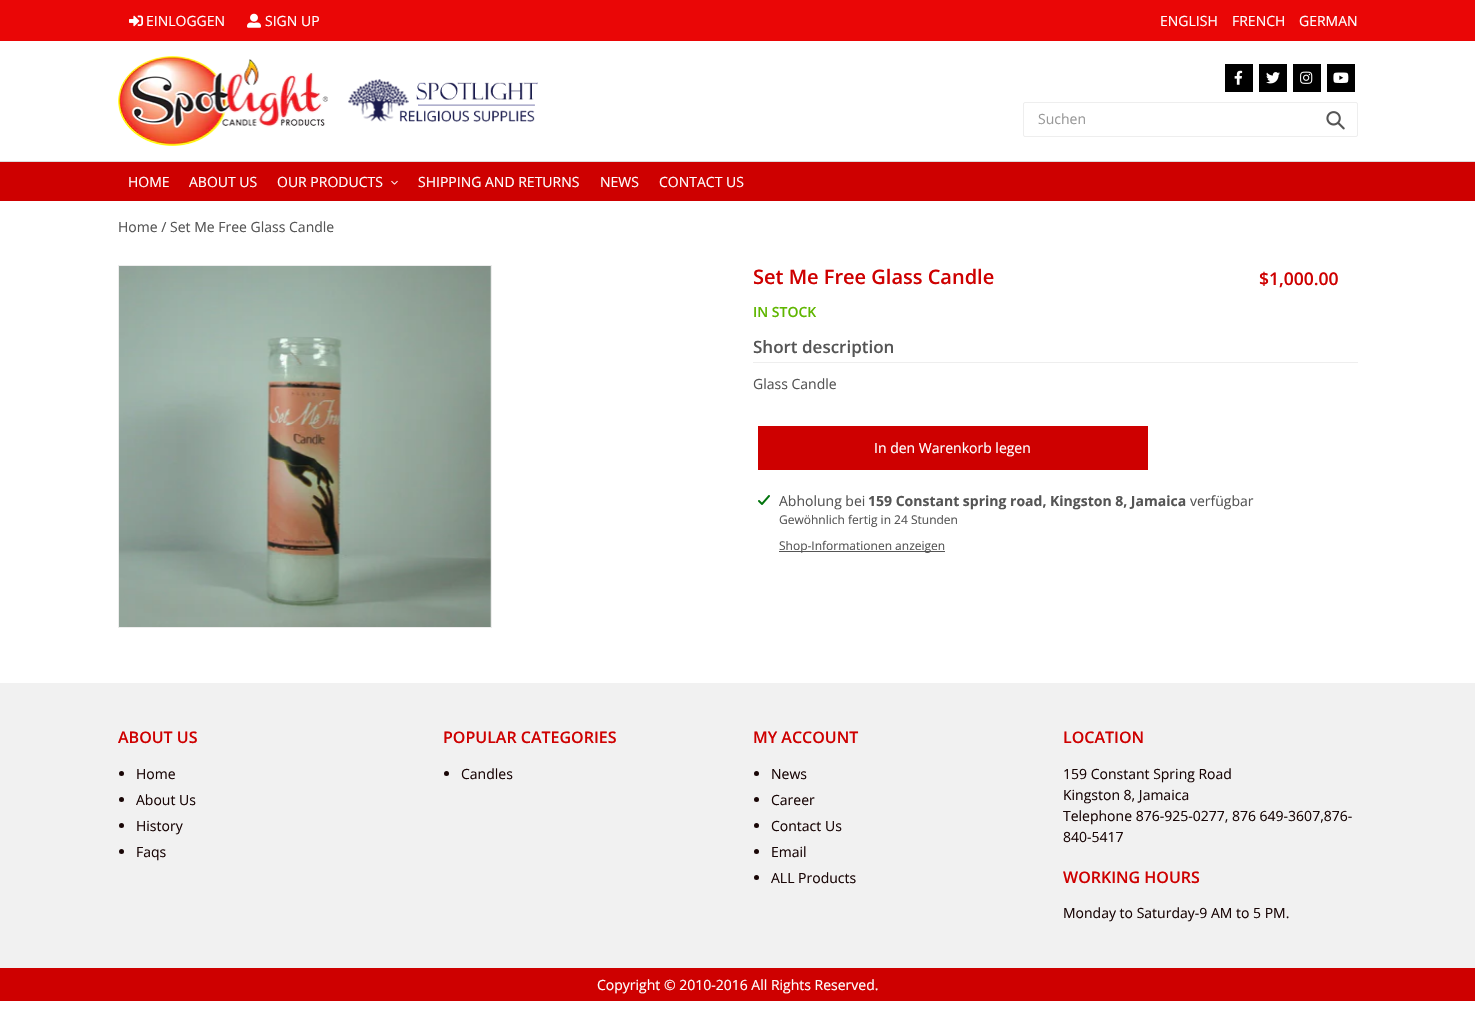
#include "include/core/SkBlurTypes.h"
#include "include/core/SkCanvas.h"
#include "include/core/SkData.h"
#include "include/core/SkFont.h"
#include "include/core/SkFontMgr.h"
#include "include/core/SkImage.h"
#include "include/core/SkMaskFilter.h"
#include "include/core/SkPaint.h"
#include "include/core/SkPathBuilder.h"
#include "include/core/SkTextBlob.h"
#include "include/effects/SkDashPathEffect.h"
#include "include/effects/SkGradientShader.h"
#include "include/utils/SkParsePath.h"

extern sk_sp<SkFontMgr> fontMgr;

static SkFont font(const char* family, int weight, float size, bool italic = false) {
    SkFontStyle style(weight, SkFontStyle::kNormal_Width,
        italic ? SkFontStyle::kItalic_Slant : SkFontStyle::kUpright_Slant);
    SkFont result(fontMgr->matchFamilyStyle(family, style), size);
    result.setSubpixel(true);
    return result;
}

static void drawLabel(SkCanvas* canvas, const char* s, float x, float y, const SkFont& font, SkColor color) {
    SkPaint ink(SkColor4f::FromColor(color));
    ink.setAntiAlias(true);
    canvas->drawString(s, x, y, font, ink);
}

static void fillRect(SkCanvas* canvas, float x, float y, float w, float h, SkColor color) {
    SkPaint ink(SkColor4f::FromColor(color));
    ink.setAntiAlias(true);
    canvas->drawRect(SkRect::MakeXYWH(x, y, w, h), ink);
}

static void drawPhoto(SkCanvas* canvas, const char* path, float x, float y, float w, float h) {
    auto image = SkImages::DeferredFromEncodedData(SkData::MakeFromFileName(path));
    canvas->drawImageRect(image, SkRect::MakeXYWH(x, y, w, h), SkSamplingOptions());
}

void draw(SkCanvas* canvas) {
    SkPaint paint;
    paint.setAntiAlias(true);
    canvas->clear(0xFFFFFFFF);
    fillRect(canvas, 0, 0, 1475, 41, 0xFFEA0606);
    drawPhoto(canvas, "assets/img1.png", 129, 15, 14, 12);
    SkFont font1 = font("Open Sans", 400, 14);
    drawLabel(canvas, "EINLOGGEN", 146, 26, font1, 0xFFFFFFFF);
    drawPhoto(canvas, "assets/img2.png", 247, 13, 14, 15);
    drawLabel(canvas, "SIGN UP", 265, 26, font1, 0xFFFFFFFF);
    drawLabel(canvas, "ENGLISH", 1160, 26, font1, 0xFFFFFFFF);
    drawLabel(canvas, "FRENCH", 1232, 26, font1, 0xFFFFFFFF);
    drawLabel(canvas, "GERMAN", 1299, 26, font1, 0xFFFFFFFF);
    fillRect(canvas, 0, 161, 1475, 1, 0xFFDDDDDD);
    drawPhoto(canvas, "assets/img3.png", 118, 56, 210, 90);
    drawPhoto(canvas, "assets/img4.png", 348, 79, 190, 43);
    fillRect(canvas, 1225, 64, 28, 28, 0xFF000000);
    drawPhoto(canvas, "assets/img5.png", 1234, 70, 9, 15);
    fillRect(canvas, 1259, 64, 28, 28, 0xFF000000);
    drawPhoto(canvas, "assets/img6.png", 1266, 72, 14, 12);
    fillRect(canvas, 1293, 64, 28, 28, 0xFF000000);
    drawPhoto(canvas, "assets/img7.png", 1300, 71, 13, 13);
    fillRect(canvas, 1327, 64, 28, 28, 0xFF000000);
    drawPhoto(canvas, "assets/img8.png", 1333, 72, 16, 11);
    paint.setStroke(true);
    paint.setStrokeWidth(1);
    paint.setColor(0xFFEEEEEE);
    canvas->drawRoundRect(SkRect::MakeXYWH(1023.5f, 102.5f, 334, 34), 1.5f, 1.5f, paint);
    drawLabel(canvas, "Suchen", 1038, 124, font1, 0xFF999999);
    drawPhoto(canvas, "assets/img9.png", 1326, 111, 19, 19);
    fillRect(canvas, 0, 162, 1475, 39, 0xFFCE0000);
    drawLabel(canvas, "HOME", 128, 187, font1, 0xFFFFFFFF);
    drawLabel(canvas, "ABOUT US", 189, 187, font1, 0xFFFFFFFF);
    drawLabel(canvas, "OUR PRODUCTS", 277, 187, font1, 0xFFFFFFFF);
    drawPhoto(canvas, "assets/img10.png", 391, 180, 7, 5);
    drawLabel(canvas, "SHIPPING AND RETURNS", 418, 187, font1, 0xFFFFFFFF);
    drawLabel(canvas, "NEWS", 600, 187, font1, 0xFFFFFFFF);
    drawLabel(canvas, "CONTACT US", 659, 187, font1, 0xFFFFFFFF);
    drawLabel(canvas, "Home /", 118, 232, font1, 0xFF555555);
    drawLabel(canvas, "Set Me Free Glass Candle", 170, 232, font1, 0xFF555555);
    paint.setColor(0xFFEDEDED);
    canvas->drawRect(SkRect::MakeXYWH(118.5f, 265.5f, 373, 362), paint);
    drawPhoto(canvas, "assets/img11.png", 119, 266, 372, 361);
    SkFont font2 = font("Open Sans", 600, 20);
    drawLabel(canvas, "Set Me Free Glass Candle", 753, 284, font2, 0xFFCE0000);
    SkFont font3 = font("Open Sans", 600, 17.5f);
    drawLabel(canvas, "$1,000.00", 1259, 285, font3, 0xFFCE0000);
    SkFont font4 = font("Open Sans", 600, 14);
    drawLabel(canvas, "IN STOCK", 753, 317, font4, 0xFF5FB600);
    fillRect(canvas, 753, 362, 605, 1, 0xFFEEEEEE);
    SkFont font5 = font("Open Sans", 600, 17);
    drawLabel(canvas, "Short description", 753, 353, font5, 0xFF555555);
    drawLabel(canvas, "Glass Candle", 753, 389, font1, 0xFF555555);
    fillRect(canvas, 758, 426, 390, 44, 0xFFCE0000);
    drawLabel(canvas, "In den Warenkorb legen", 874, 453, font1, 0xFFFFFFFF);
    drawPhoto(canvas, "assets/img12.png", 758, 495, 12, 10);
    drawLabel(canvas, "Abholung bei", 779, 506, font1, 0xFF555555);
    SkFont font6 = font("Open Sans", 700, 14);
    drawLabel(canvas, "159 Constant spring road, Kingston 8, Jamaica", 868, 506, font6, 0xFF555555);
    drawLabel(canvas, "verfügbar", 1190, 506, font1, 0xFF555555);
    SkFont font7 = font("Open Sans", 400, 12);
    drawLabel(canvas, "Gewöhnlich fertig in 24 Stunden", 779, 524, font7, 0xFF555555);
    fillRect(canvas, 779, 551, 166, 1, 0xFF555555);
    drawLabel(canvas, "Shop-Informationen anzeigen", 779, 550, font7, 0xFF555555);
    fillRect(canvas, 0, 683, 1475, 285, 0xFFF1F1F1);
    SkFont font8 = font("Open Sans", 600, 16);
    drawLabel(canvas, "ABOUT US", 118, 743, font8, 0xFFCE0000);
    paint.setStroke(false);
    paint.setColor(0xFF190606);
    canvas->drawCircle(121.5f, 773.5f, 2.5f, paint);
    drawLabel(canvas, "Home", 136, 779, font1, 0xFF190606);
    canvas->drawCircle(121.5f, 799.5f, 2.5f, paint);
    drawLabel(canvas, "About Us", 136, 805, font1, 0xFF190606);
    canvas->drawCircle(121.5f, 825.5f, 2.5f, paint);
    drawLabel(canvas, "History", 136, 831, font1, 0xFF190606);
    canvas->drawCircle(121.5f, 851.5f, 2.5f, paint);
    drawLabel(canvas, "Faqs", 136, 857, font1, 0xFF190606);
    drawLabel(canvas, "POPULAR CATEGORIES", 443, 743, font8, 0xFFCE0000);
    canvas->drawCircle(446.5f, 773.5f, 2.5f, paint);
    drawLabel(canvas, "Candles", 461, 779, font1, 0xFF190606);
    drawLabel(canvas, "MY ACCOUNT", 753, 743, font8, 0xFFCE0000);
    canvas->drawCircle(756.5f, 773.5f, 2.5f, paint);
    drawLabel(canvas, "News", 771, 779, font1, 0xFF190606);
    canvas->drawCircle(756.5f, 799.5f, 2.5f, paint);
    drawLabel(canvas, "Career", 771, 805, font1, 0xFF190606);
    canvas->drawCircle(756.5f, 825.5f, 2.5f, paint);
    drawLabel(canvas, "Contact Us", 771, 831, font1, 0xFF190606);
    canvas->drawCircle(756.5f, 851.5f, 2.5f, paint);
    drawLabel(canvas, "Email", 771, 857, font1, 0xFF190606);
    canvas->drawCircle(756.5f, 877.5f, 2.5f, paint);
    drawLabel(canvas, "ALL Products", 771, 883, font1, 0xFF190606);
    drawLabel(canvas, "LOCATION", 1063, 743, font8, 0xFFCE0000);
    drawLabel(canvas, "159 Constant Spring Road", 1063, 779, font1, 0xFF190606);
    drawLabel(canvas, "Kingston 8, Jamaica", 1063, 800, font1, 0xFF190606);
    drawLabel(canvas, "Telephone 876-925-0277, 876 649-3607,876-", 1063, 821, font1, 0xFF190606);
    drawLabel(canvas, "840-5417", 1063, 842, font1, 0xFF190606);
    drawLabel(canvas, "WORKING HOURS", 1063, 883, font8, 0xFFCE0000);
    drawLabel(canvas, "Monday to Saturday-9 AM to 5 PM.", 1063, 918, font1, 0xFF190606);
    fillRect(canvas, 0, 968, 1475, 33, 0xFFCE0000);
    drawLabel(canvas, "Copyright © 2010-2016 All Rights Reserved.", 597, 990, font1, 0xFFFFFFFF);
}
